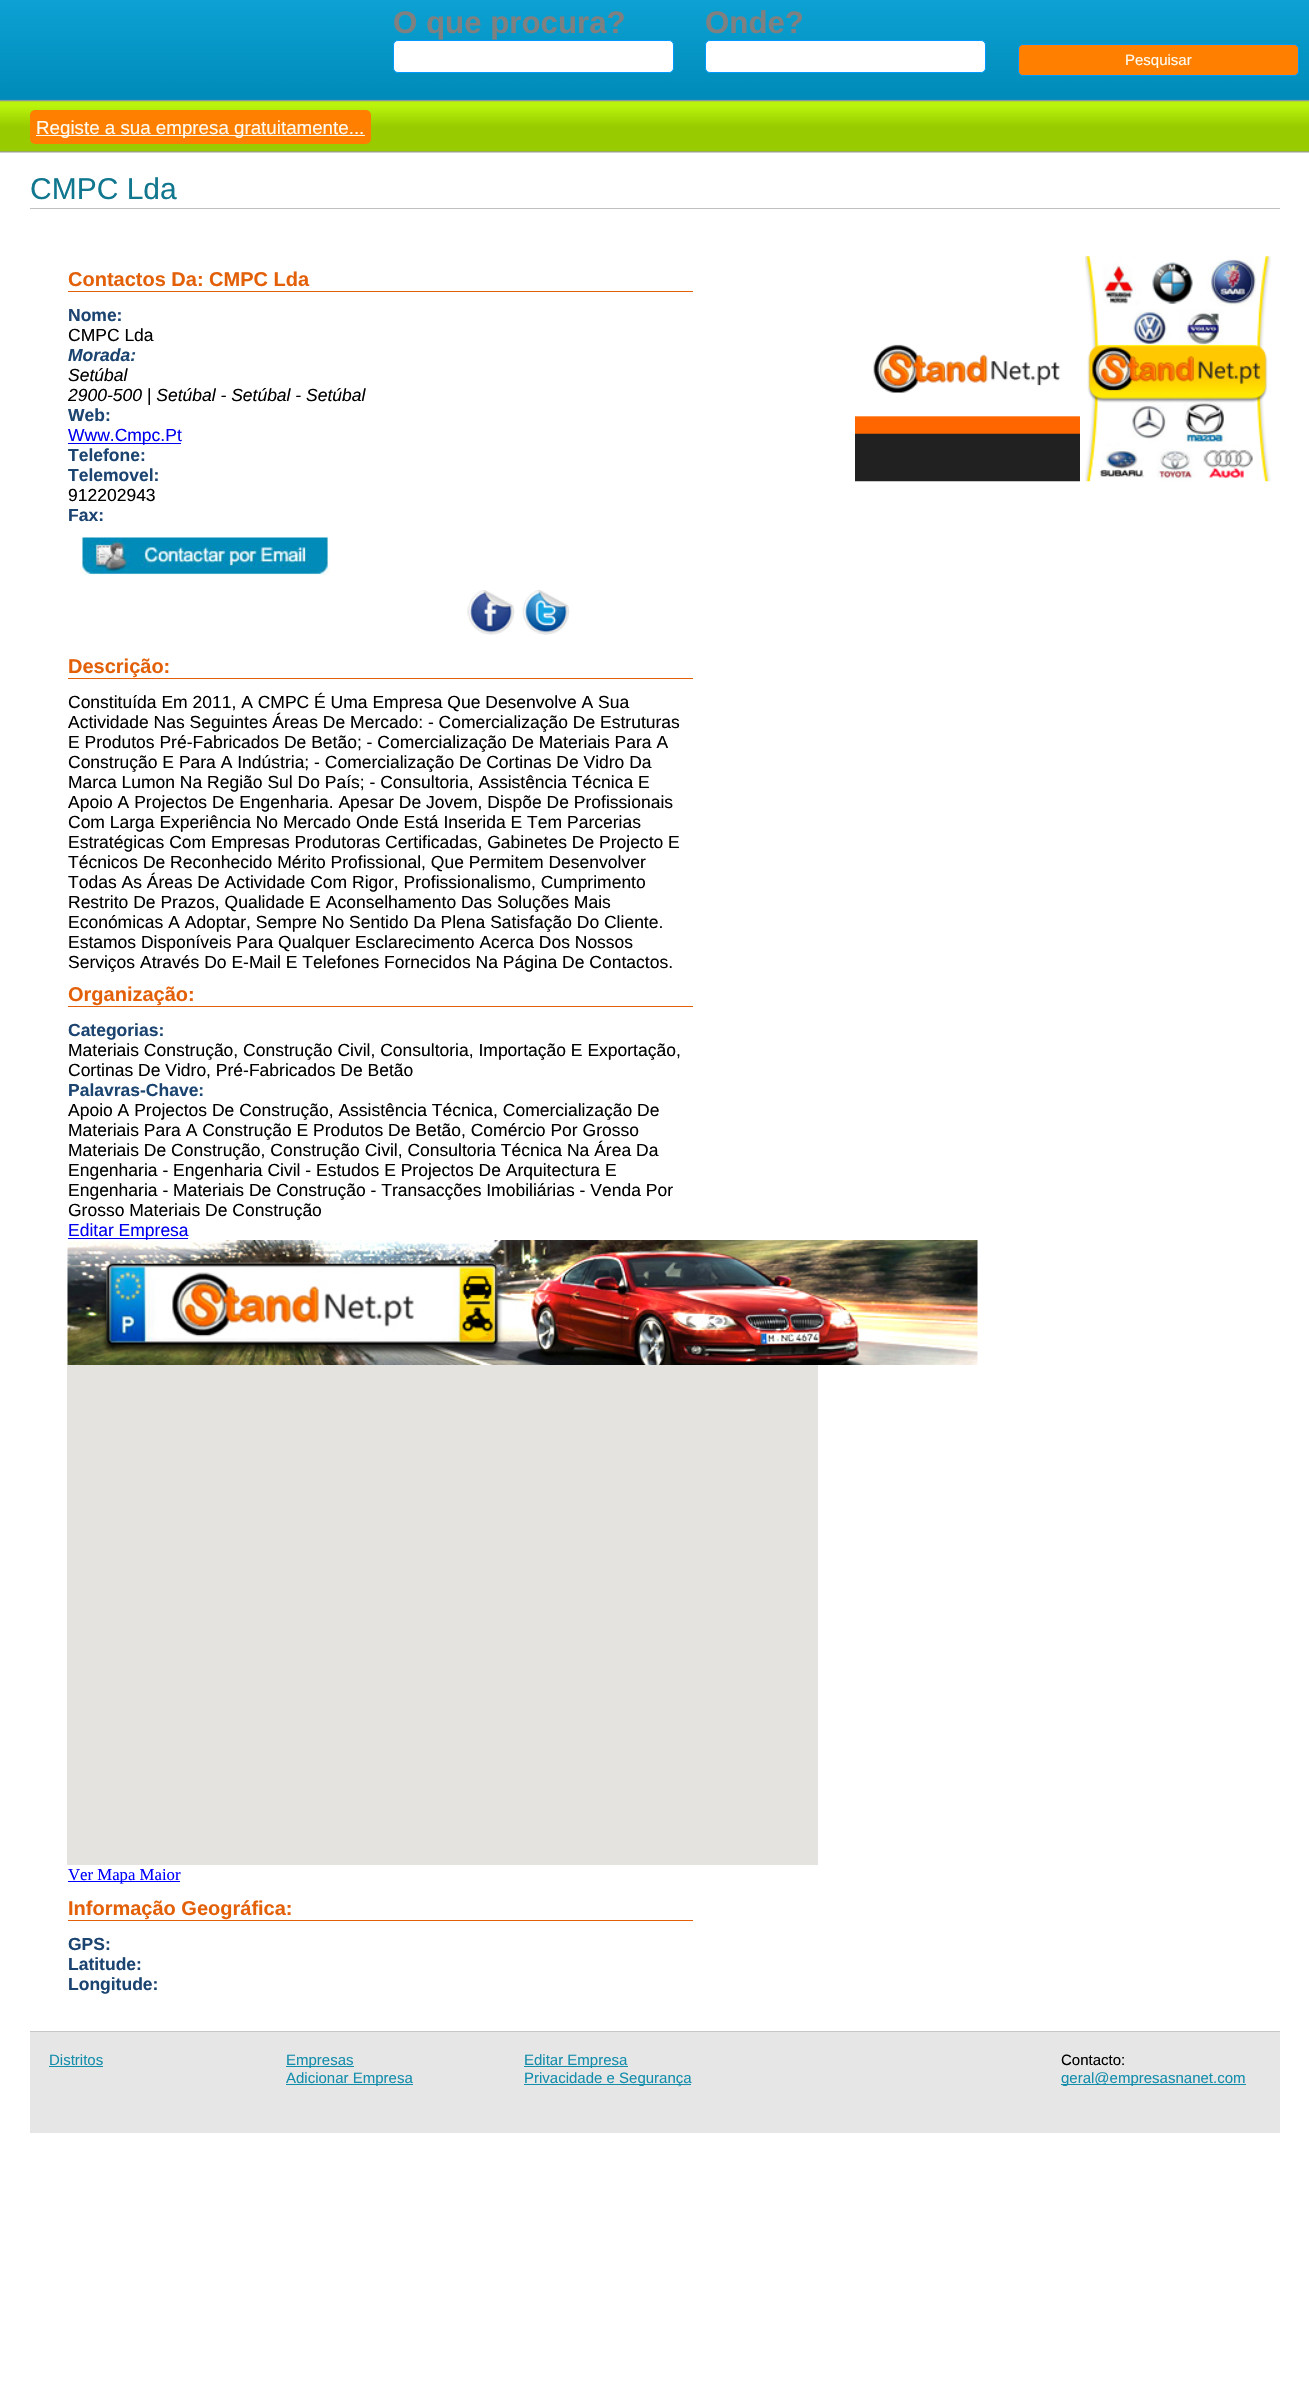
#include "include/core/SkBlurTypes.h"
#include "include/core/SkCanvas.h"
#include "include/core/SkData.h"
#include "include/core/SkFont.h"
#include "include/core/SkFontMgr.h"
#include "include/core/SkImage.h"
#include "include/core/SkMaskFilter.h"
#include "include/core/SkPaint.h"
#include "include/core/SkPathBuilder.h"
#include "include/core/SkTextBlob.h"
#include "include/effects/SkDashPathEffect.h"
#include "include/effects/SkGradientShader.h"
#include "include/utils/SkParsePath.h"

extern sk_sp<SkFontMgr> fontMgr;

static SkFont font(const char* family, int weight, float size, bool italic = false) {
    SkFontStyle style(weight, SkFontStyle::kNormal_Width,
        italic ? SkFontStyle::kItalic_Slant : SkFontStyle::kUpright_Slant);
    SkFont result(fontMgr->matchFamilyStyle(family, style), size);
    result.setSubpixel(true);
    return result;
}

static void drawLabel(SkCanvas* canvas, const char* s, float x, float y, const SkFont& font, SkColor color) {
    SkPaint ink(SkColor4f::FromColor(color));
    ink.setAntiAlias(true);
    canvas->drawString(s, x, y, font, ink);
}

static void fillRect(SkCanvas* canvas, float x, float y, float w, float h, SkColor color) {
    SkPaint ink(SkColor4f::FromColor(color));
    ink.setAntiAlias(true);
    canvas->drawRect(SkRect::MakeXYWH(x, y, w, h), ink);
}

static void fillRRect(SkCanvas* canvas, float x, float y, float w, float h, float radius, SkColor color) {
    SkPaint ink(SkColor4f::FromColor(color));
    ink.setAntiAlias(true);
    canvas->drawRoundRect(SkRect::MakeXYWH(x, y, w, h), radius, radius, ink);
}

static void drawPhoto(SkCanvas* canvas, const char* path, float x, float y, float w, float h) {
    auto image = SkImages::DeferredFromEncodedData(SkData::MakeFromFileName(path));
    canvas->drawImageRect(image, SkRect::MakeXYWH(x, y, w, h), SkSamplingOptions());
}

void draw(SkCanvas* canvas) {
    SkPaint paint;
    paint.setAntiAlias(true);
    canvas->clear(0xFFFFFFFF);
    drawPhoto(canvas, "assets/img1.png", 0, 0, 1309, 153);
    SkFont font1 = font("Liberation Sans", 700, 31.25f);
    drawLabel(canvas, "O que procura?", 393, 33, font1, 0xFF808080);
    paint.setColor(0xFFFFFFFF);
    canvas->drawRoundRect(SkRect::MakeXYWH(393.5f, 40.5f, 280, 32), 4.5f, 4.5f, paint);
    paint.setStroke(true);
    paint.setStrokeWidth(1);
    paint.setColor(0xFF0099FF);
    canvas->drawRoundRect(SkRect::MakeXYWH(393.5f, 40.5f, 280, 32), 4.5f, 4.5f, paint);
    drawLabel(canvas, "Onde?", 705, 33, font1, 0xFF808080);
    paint.setStroke(false);
    paint.setColor(0xFFFFFFFF);
    canvas->drawRoundRect(SkRect::MakeXYWH(705.5f, 40.5f, 280, 32), 4.5f, 4.5f, paint);
    paint.setStroke(true);
    paint.setColor(0xFF0099FF);
    canvas->drawRoundRect(SkRect::MakeXYWH(705.5f, 40.5f, 280, 32), 4.5f, 4.5f, paint);
    paint.setStroke(false);
    paint.setColor(0xFFFF8000);
    canvas->drawRoundRect(SkRect::MakeXYWH(1018.5f, 44.5f, 280, 31), 4.5f, 4.5f, paint);
    paint.setStroke(true);
    paint.setColor(0xFF0099FF);
    canvas->drawRoundRect(SkRect::MakeXYWH(1018.5f, 44.5f, 280, 31), 4.5f, 4.5f, paint);
    SkFont font2 = font("Liberation Sans", 400, 15);
    drawLabel(canvas, "Pesquisar", 1125, 65, font2, 0xFFFFFBF0);
    fillRRect(canvas, 30, 110, 341, 34, 5, 0xFFFF8000);
    fillRect(canvas, 36, 135, 329, 1, 0xFFFFFBF0);
    SkFont font3 = font("Liberation Sans", 400, 18.75f);
    drawLabel(canvas, "Registe a sua empresa gratuitamente...", 36, 134, font3, 0xFFFFFBF0);
    fillRect(canvas, 30, 208, 1250, 1, 0xFFC0C0C0);
    SkFont font4 = font("Liberation Sans", 400, 30);
    drawLabel(canvas, "CMPC Lda", 30, 199, font4, 0xFF11778F);
    fillRect(canvas, 68, 291, 625, 1, 0xFFE36009);
    SkFont font5 = font("Liberation Sans", 700, 20);
    drawLabel(canvas, "Contactos Da: CMPC Lda", 68, 286, font5, 0xFFE36009);
    SkFont font6 = font("Liberation Sans", 700, 17.5f);
    drawLabel(canvas, "Nome:", 68, 321, font6, 0xFF1C4471);
    SkFont font7 = font("Liberation Sans", 400, 17.5f);
    drawLabel(canvas, "CMPC Lda", 68, 341, font7, 0xFF000000);
    SkFont font8 = font("Liberation Sans", 700, 17.5f, true);
    drawLabel(canvas, "Morada:", 68, 361, font8, 0xFF1C4471);
    SkFont font9 = font("Liberation Sans", 400, 17.5f, true);
    drawLabel(canvas, "Setúbal", 68, 381, font9, 0xFF000000);
    drawLabel(canvas, "2900-500 | Setúbal - Setúbal - Setúbal", 68, 401, font9, 0xFF000000);
    drawLabel(canvas, "Web:", 68, 421, font6, 0xFF1C4471);
    fillRect(canvas, 68, 443, 113, 1, 0xFF0000EE);
    drawLabel(canvas, "Www.Cmpc.Pt", 68, 441, font7, 0xFF0000EE);
    drawLabel(canvas, "Telefone:", 68, 461, font6, 0xFF1C4471);
    drawLabel(canvas, "Telemovel:", 68, 481, font6, 0xFF1C4471);
    drawLabel(canvas, "912202943", 68, 501, font7, 0xFF000000);
    drawLabel(canvas, "Fax:", 68, 521, font6, 0xFF1C4471);
    drawPhoto(canvas, "assets/img2.png", 80, 537, 250, 38);
    drawPhoto(canvas, "assets/img3.png", 467, 590, 48, 45);
    drawPhoto(canvas, "assets/img4.png", 522, 590, 48, 45);
    fillRect(canvas, 68, 678, 625, 1, 0xFFE36009);
    drawLabel(canvas, "Descrição:", 68, 673, font5, 0xFFE36009);
    drawLabel(canvas, "Constituída Em 2011, A CMPC É Uma Empresa Que Desenvolve A Sua", 68, 708, font7, 0xFF000000);
    drawLabel(canvas, "Actividade Nas Seguintes Áreas De Mercado: - Comercialização De Estruturas", 68, 728, font7, 0xFF000000);
    drawLabel(canvas, "E Produtos Pré-Fabricados De Betão; - Comercialização De Materiais Para A", 68, 748, font7, 0xFF000000);
    drawLabel(canvas, "Construção E Para A Indústria; - Comercialização De Cortinas De Vidro Da", 68, 768, font7, 0xFF000000);
    drawLabel(canvas, "Marca Lumon Na Região Sul Do País; - Consultoria, Assistência Técnica E", 68, 788, font7, 0xFF000000);
    drawLabel(canvas, "Apoio A Projectos De Engenharia. Apesar De Jovem, Dispõe De Profissionais", 68, 808, font7, 0xFF000000);
    drawLabel(canvas, "Com Larga Experiência No Mercado Onde Está Inserida E Tem Parcerias", 68, 828, font7, 0xFF000000);
    drawLabel(canvas, "Estratégicas Com Empresas Produtoras Certificadas, Gabinetes De Projecto E", 68, 848, font7, 0xFF000000);
    drawLabel(canvas, "Técnicos De Reconhecido Mérito Profissional, Que Permitem Desenvolver", 68, 868, font7, 0xFF000000);
    drawLabel(canvas, "Todas As Áreas De Actividade Com Rigor, Profissionalismo, Cumprimento", 68, 888, font7, 0xFF000000);
    drawLabel(canvas, "Restrito De Prazos, Qualidade E Aconselhamento Das Soluções Mais", 68, 908, font7, 0xFF000000);
    drawLabel(canvas, "Económicas A Adoptar, Sempre No Sentido Da Plena Satisfação Do Cliente.", 68, 928, font7, 0xFF000000);
    drawLabel(canvas, "Estamos Disponíveis Para Qualquer Esclarecimento Acerca Dos Nossos", 68, 948, font7, 0xFF000000);
    drawLabel(canvas, "Serviços Através Do E-Mail E Telefones Fornecidos Na Página De Contactos.", 68, 968, font7, 0xFF000000);
    fillRect(canvas, 68, 1006, 625, 1, 0xFFE36009);
    drawLabel(canvas, "Organização:", 68, 1001, font5, 0xFFE36009);
    drawLabel(canvas, "Categorias:", 68, 1036, font6, 0xFF1C4471);
    drawLabel(canvas, "Materiais Construção, Construção Civil, Consultoria, Importação E Exportação,", 68, 1056, font7, 0xFF000000);
    drawLabel(canvas, "Cortinas De Vidro, Pré-Fabricados De Betão", 68, 1076, font7, 0xFF000000);
    drawLabel(canvas, "Palavras-Chave:", 68, 1096, font6, 0xFF1C4471);
    drawLabel(canvas, "Apoio A Projectos De Construção, Assistência Técnica, Comercialização De", 68, 1116, font7, 0xFF000000);
    drawLabel(canvas, "Materiais Para A Construção E Produtos De Betão, Comércio Por Grosso", 68, 1136, font7, 0xFF000000);
    drawLabel(canvas, "Materiais De Construção, Construção Civil, Consultoria Técnica Na Área Da", 68, 1156, font7, 0xFF000000);
    drawLabel(canvas, "Engenharia - Engenharia Civil - Estudos E Projectos De Arquitectura E", 68, 1176, font7, 0xFF000000);
    drawLabel(canvas, "Engenharia - Materiais De Construção - Transacções Imobiliárias - Venda Por", 68, 1196, font7, 0xFF000000);
    drawLabel(canvas, "Grosso Materiais De Construção", 68, 1216, font7, 0xFF000000);
    fillRect(canvas, 68, 1238, 120, 1, 0xFF0000EE);
    drawLabel(canvas, "Editar Empresa", 68, 1236, font7, 0xFF0000EE);
    drawPhoto(canvas, "assets/img5.png", 67, 1240, 911, 125);
    fillRect(canvas, 67, 1365, 751, 500, 0xFFE5E3DF);
    fillRect(canvas, 68, 1881, 112, 1, 0xFF0000FF);
    SkFont font10 = font("Liberation Serif", 400, 16.75f);
    drawLabel(canvas, "Ver Mapa Maior", 68, 1880, font10, 0xFF0000FF);
    fillRect(canvas, 68, 1920, 625, 1, 0xFFE36009);
    drawLabel(canvas, "Informação Geográfica:", 68, 1915, font5, 0xFFE36009);
    drawLabel(canvas, "GPS:", 68, 1950, font6, 0xFF1C4471);
    drawLabel(canvas, "Latitude:", 68, 1970, font6, 0xFF1C4471);
    drawLabel(canvas, "Longitude:", 68, 1990, font6, 0xFF1C4471);
    drawPhoto(canvas, "assets/img6.png", 855, 344, 225, 138);
    drawPhoto(canvas, "assets/img7.png", 1085, 256, 186, 226);
    fillRect(canvas, 30, 2032, 1250, 101, 0xFFE6E6E6);
    fillRect(canvas, 30, 2031, 1250, 1, 0xFFC7C7C7);
    drawLabel(canvas, "Distritos", 49, 2065, font2, 0xFF158EAC);
    fillRect(canvas, 49, 2066, 54, 1, 0xFF158EAC);
    fillRect(canvas, 286, 2066, 68, 1, 0xFF158EAC);
    drawLabel(canvas, "Empresas", 286, 2065, font2, 0xFF158EAC);
    fillRect(canvas, 286, 2084, 127, 1, 0xFF158EAC);
    drawLabel(canvas, "Adicionar Empresa", 286, 2083, font2, 0xFF158EAC);
    fillRect(canvas, 524, 2066, 104, 1, 0xFF158EAC);
    drawLabel(canvas, "Editar Empresa", 524, 2065, font2, 0xFF158EAC);
    fillRect(canvas, 524, 2084, 167, 1, 0xFF158EAC);
    drawLabel(canvas, "Privacidade e Segurança", 524, 2083, font2, 0xFF158EAC);
    drawLabel(canvas, "Contacto:", 1061, 2065, font2, 0xFF000000);
    fillRect(canvas, 1061, 2084, 185, 1, 0xFF158EAC);
    drawLabel(canvas, "geral@empresasnanet.com", 1061, 2083, font2, 0xFF158EAC);
}
